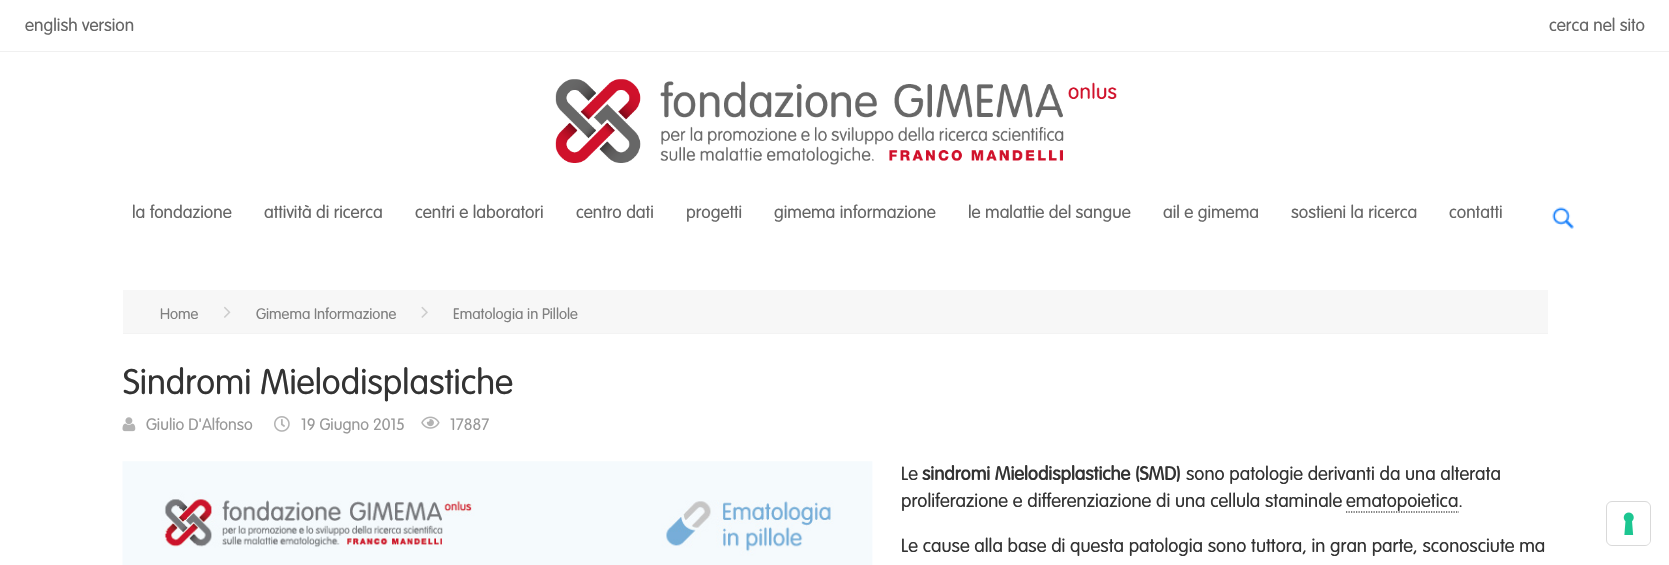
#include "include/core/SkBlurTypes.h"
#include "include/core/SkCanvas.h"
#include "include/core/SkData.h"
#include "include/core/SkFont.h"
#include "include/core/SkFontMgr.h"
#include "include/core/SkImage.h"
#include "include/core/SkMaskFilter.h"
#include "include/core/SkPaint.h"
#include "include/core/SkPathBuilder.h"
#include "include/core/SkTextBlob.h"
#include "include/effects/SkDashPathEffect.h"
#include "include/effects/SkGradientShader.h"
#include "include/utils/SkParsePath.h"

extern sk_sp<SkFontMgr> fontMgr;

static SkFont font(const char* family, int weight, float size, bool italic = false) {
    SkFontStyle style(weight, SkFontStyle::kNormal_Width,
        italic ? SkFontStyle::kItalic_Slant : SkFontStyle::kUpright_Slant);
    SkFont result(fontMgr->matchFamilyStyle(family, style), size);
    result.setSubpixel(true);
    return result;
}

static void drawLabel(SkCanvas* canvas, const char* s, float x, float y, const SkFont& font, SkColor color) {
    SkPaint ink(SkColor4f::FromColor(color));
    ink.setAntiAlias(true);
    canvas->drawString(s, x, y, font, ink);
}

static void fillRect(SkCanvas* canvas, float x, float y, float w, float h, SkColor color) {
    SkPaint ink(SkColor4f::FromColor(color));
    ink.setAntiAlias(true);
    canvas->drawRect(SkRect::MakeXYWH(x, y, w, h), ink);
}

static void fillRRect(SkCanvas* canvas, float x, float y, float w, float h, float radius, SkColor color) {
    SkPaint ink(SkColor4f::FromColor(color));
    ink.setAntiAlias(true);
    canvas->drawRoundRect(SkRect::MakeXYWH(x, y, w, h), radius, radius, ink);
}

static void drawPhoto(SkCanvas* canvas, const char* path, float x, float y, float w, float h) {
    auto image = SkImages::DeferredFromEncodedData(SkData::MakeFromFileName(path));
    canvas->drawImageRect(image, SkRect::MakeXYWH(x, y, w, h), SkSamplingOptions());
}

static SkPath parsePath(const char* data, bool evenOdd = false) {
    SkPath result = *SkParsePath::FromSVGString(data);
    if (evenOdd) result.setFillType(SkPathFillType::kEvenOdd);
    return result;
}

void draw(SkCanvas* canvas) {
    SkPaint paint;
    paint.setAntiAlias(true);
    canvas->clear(0xFFFFFFFF);
    fillRect(canvas, 0, 51, 1669, 1, 0xFFF0F0F0);
    SkFont font1 = font("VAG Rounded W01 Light", 300, 17.5f);
    drawLabel(canvas, "english version", 25, 31, font1, 0xFF666666);
    drawLabel(canvas, "cerca nel sito", 1549, 31, font1, 0xFF666666);
    drawPhoto(canvas, "assets/img1.png", 555, 79, 562, 86);
    drawLabel(canvas, "la fondazione", 132, 218, font1, 0xFF666666);
    drawLabel(canvas, "attività di ricerca", 264, 218, font1, 0xFF666666);
    drawLabel(canvas, "centri e laboratori", 415, 218, font1, 0xFF666666);
    drawLabel(canvas, "centro dati", 576, 218, font1, 0xFF666666);
    drawLabel(canvas, "progetti", 686, 218, font1, 0xFF666666);
    drawLabel(canvas, "gimema informazione", 774, 218, font1, 0xFF666666);
    drawLabel(canvas, "le malattie del sangue", 968, 218, font1, 0xFF666666);
    drawLabel(canvas, "ail e gimema", 1163, 218, font1, 0xFF666666);
    drawLabel(canvas, "sostieni la ricerca", 1291, 218, font1, 0xFF666666);
    drawLabel(canvas, "contatti", 1449, 218, font1, 0xFF666666);
    drawPhoto(canvas, "assets/img2.png", 1552, 207, 22, 22);
    fillRect(canvas, 123, 290, 1425, 43, 0xFFF7F7F7);
    fillRect(canvas, 123, 333, 1425, 1, 0xFFF3F3F3);
    SkFont font2 = font("VAG Rounded W01 Light", 300, 15);
    drawLabel(canvas, "Home", 160, 319, font2, 0xFF808080);
    drawPhoto(canvas, "assets/img3.png", 224, 306, 7, 12);
    drawLabel(canvas, "Gimema Informazione", 256, 319, font2, 0xFF808080);
    drawPhoto(canvas, "assets/img4.png", 421, 306, 7, 12);
    drawLabel(canvas, "Ematologia in Pillole", 453, 319, font2, 0xFF808080);
    SkFont font3 = font("VAG Rounded W01 Light", 300, 35);
    drawLabel(canvas, "Sindromi Mielodisplastiche", 123, 394, font3, 0xFF333333);
    drawPhoto(canvas, "assets/img5.png", 122, 417, 14, 15);
    SkFont font4 = font("VAG Rounded W01 Light", 300, 16.25f);
    drawLabel(canvas, "Giulio D'Alfonso", 146, 430, font4, 0xFF999999);
    drawPhoto(canvas, "assets/img6.png", 274, 416, 16, 16);
    drawLabel(canvas, "19 Giugno 2015", 301, 430, font4, 0xFF999999);
    drawPhoto(canvas, "assets/img7.png", 421, 416, 19, 13);
    drawLabel(canvas, "17887", 450, 430, font4, 0xFF999999);
    drawPhoto(canvas, "assets/img8.png", 122, 461, 751, 104);
    SkFont font5 = font("VAG Rounded W01 Light", 300, 18.75f);
    drawLabel(canvas, "Le", 901, 480, font5, 0xFF333333);
    SkFont font6 = font("VAG Rounded W01 Light", 700, 18.75f);
    drawLabel(canvas, "sindromi Mielodisplastiche (SMD)", 922, 480, font6, 0xFF333333);
    drawLabel(canvas, "sono patologie derivanti da una alterata", 1186, 480, font5, 0xFF333333);
    drawLabel(canvas, "proliferazione e differenziazione di una cellula staminale", 901, 507, font5, 0xFF333333);
    paint.setStroke(true);
    paint.setStrokeWidth(1.2f);
    paint.setColor(0xFF000000);
    paint.setPathEffect(SkDashPathEffect::Make({{1.25f, 1.25f}}, 0));
    canvas->drawPath(parsePath("M1346 512H1459"), paint);
    paint.setPathEffect(nullptr);
    drawLabel(canvas, "ematopoietica.", 1346, 507, font5, 0xFF333333);
    drawLabel(canvas, "Le cause alla base di questa patologia sono tuttora, in gran parte, sconosciute ma", 901, 552, font5, 0xFF333333);
    paint.setStrokeWidth(1);
    paint.setColor(0xFFD9D9D9);
    canvas->drawRoundRect(SkRect::MakeXYWH(1606.5f, 501.5f, 44, 44), 5.5f, 5.5f, paint);
    fillRRect(canvas, 1608, 503, 42, 42, 5, 0xFFFFFFFF);
    drawPhoto(canvas, "assets/img9.png", 1623, 512, 11, 23);
}
